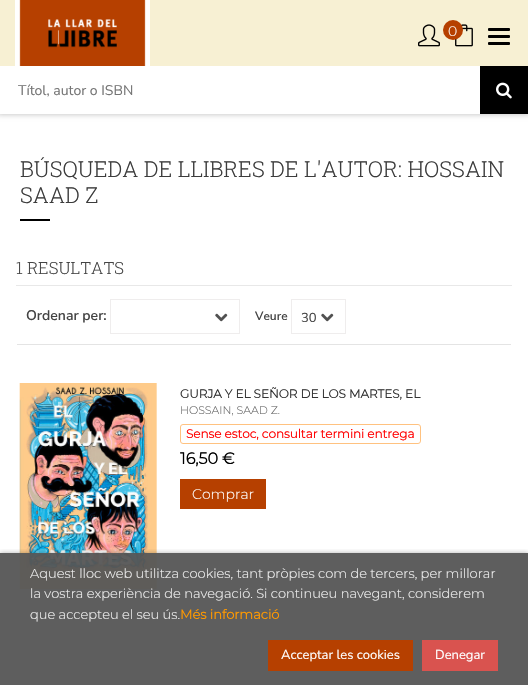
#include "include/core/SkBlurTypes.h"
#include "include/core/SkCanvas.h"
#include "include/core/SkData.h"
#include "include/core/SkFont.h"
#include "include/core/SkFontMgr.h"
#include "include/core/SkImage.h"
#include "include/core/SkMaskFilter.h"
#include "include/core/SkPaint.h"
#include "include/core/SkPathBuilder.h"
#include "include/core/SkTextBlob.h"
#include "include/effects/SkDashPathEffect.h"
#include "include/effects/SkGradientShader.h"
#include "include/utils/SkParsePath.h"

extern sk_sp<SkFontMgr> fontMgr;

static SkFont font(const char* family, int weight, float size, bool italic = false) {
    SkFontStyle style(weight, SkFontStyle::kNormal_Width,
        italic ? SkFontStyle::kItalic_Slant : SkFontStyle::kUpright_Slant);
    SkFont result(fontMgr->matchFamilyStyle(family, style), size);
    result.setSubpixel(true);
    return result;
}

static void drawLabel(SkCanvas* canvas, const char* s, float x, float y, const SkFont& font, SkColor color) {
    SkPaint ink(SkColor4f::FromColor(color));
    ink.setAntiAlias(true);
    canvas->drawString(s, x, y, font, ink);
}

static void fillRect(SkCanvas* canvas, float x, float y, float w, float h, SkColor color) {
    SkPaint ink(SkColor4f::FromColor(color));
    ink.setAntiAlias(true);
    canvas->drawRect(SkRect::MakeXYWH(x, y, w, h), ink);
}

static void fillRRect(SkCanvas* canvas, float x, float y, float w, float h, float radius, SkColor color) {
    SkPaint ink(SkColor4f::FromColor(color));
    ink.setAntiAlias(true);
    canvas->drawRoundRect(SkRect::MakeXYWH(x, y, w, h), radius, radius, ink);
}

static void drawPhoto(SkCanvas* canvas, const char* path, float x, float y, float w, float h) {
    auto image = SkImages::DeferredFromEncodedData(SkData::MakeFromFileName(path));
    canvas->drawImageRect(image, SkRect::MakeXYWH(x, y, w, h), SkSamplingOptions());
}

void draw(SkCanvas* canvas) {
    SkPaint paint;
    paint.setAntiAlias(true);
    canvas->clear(0xFFFFFFFF);
    paint.setColor(0x33000000);
    paint.setMaskFilter(SkMaskFilter::MakeBlur(kNormal_SkBlurStyle, 2.5f));
    canvas->drawRect(SkRect::MakeXYWH(-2, -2, 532, 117), paint);
    paint.setMaskFilter(nullptr);
    fillRect(canvas, 0, 0, 528, 66, 0xFFF7F0D3);
    fillRect(canvas, 15, 0, 5, 66, 0xFFFFFFFF);
    fillRect(canvas, 145, 0, 5, 66, 0xFFFFFFFF);
    drawPhoto(canvas, "assets/img1.png", 19, 0, 127, 66);
    drawPhoto(canvas, "assets/img2.png", 418, 24, 22, 23);
    drawPhoto(canvas, "assets/img3.png", 455, 24, 18, 23);
    paint.setColor(0xFFB64000);
    canvas->drawCircle(453, 30, 10, paint);
    SkFont font1 = font("Montserrat", 300, 14);
    drawLabel(canvas, "0", 448, 36, font1, 0xFFFFFFFF);
    fillRRect(canvas, 488, 28, 22, 3, 1, 0xFF000000);
    fillRRect(canvas, 488, 35, 22, 3, 1, 0xFF000000);
    fillRRect(canvas, 488, 42, 22, 3, 1, 0xFF000000);
    fillRect(canvas, 0, 66, 480, 48, 0xFFFFFFFF);
    SkFont font2 = font("Nunito Sans", 400, 14);
    drawLabel(canvas, "Títol, autor o ISBN", 18, 95, font2, 0xFF757575);
    fillRect(canvas, 480, 66, 48, 48, 0xFF000000);
    drawPhoto(canvas, "assets/img4.png", 496, 82, 16, 17);
    SkFont font3 = font("Roboto Slab", 300, 22);
    drawLabel(canvas, "BÚSQUEDA DE LLIBRES DE L'AUTOR: HOSSAIN", 20, 177, font3, 0xFF3C3C3C);
    drawLabel(canvas, "SAAD Z", 20, 203, font3, 0xFF3C3C3C);
    fillRect(canvas, 20, 219, 30, 2, 0xFF000000);
    fillRect(canvas, 16, 285, 496, 1, 0xFFE8E8E8);
    SkFont font4 = font("Roboto Slab", 300, 16.75f);
    drawLabel(canvas, "1 RESULTATS", 16, 274, font4, 0xFF444444);
    fillRect(canvas, 17, 344, 494, 1, 0xFFE4E4E4);
    SkFont font5 = font("Nunito Sans", 600, 14);
    drawLabel(canvas, "Ordenar per:", 26, 320, font5, 0xFF444444);
    drawPhoto(canvas, "assets/img5.png", 215, 313, 13, 9);
    paint.setStroke(true);
    paint.setStrokeWidth(1);
    paint.setColor(0xFFEFEDED);
    canvas->drawRect(SkRect::MakeXYWH(110.5f, 299.5f, 129, 34), paint);
    SkFont font6 = font("Nunito Sans", 600, 12);
    drawLabel(canvas, "Veure", 255, 320, font6, 0xFF444444);
    drawPhoto(canvas, "assets/img5.png", 321, 313, 13, 9);
    canvas->drawRect(SkRect::MakeXYWH(291.5f, 299.5f, 54, 34), paint);
    SkFont font7 = font("Nunito Sans", 400, 13);
    drawLabel(canvas, "30", 301, 322, font7, 0xFF444444);
    drawPhoto(canvas, "assets/img6.png", 19, 383, 138, 206);
    drawPhoto(canvas, "assets/img7.png", 24, 589, 129, 9);
    SkFont font8 = font("Montserrat", 700, 12);
    drawLabel(canvas, "GURJA Y EL SEÑOR DE LOS MARTES, EL", 180, 398, font8, 0xFF333333);
    SkFont font9 = font("Montserrat", 300, 11);
    drawLabel(canvas, "HOSSAIN, SAAD Z.", 180, 414, font9, 0xFF666666);
    paint.setColor(0xFFFFC280);
    canvas->drawRoundRect(SkRect::MakeXYWH(180.5f, 424.5f, 240, 19), 2.5f, 2.5f, paint);
    drawLabel(canvas, "Sense estoc, consultar termini entrega", 186, 438, font8, 0xFFFF0000);
    SkFont font10 = font("Montserrat", 700, 16);
    drawLabel(canvas, "16,50 €", 180, 464, font10, 0xFF000000);
    fillRect(canvas, 180, 479, 86, 30, 0xFFB64000);
    drawLabel(canvas, "Comprar", 192, 499, font1, 0xFFFFFFFF);
    canvas->save();
    canvas->clipRect(SkRect::MakeXYWH(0, 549, 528, 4));
    paint.setStroke(false);
    paint.setColor(0x4D000000);
    paint.setMaskFilter(SkMaskFilter::MakeBlur(kNormal_SkBlurStyle, 2.5f));
    canvas->drawRect(SkRect::MakeXYWH(0, 553, 528, 132), paint);
    paint.setMaskFilter(nullptr);
    canvas->restore();
    fillRect(canvas, 0, 553, 528, 132, 0xF2555555);
    SkFont font11 = font("Montserrat", 300, 13);
    drawLabel(canvas, "Aquest lloc web utilitza cookies, tant pròpies com de tercers, per millorar", 30, 578, font11, 0xFFF2F2F2);
    drawLabel(canvas, "la vostra experiència de navegació. Si continueu navegant, considerem", 30, 598, font11, 0xFFF2F2F2);
    drawLabel(canvas, "que accepteu el seu ús.", 30, 619, font11, 0xFFF2F2F2);
    SkFont font12 = font("Montserrat", 700, 13);
    drawLabel(canvas, "Més informació", 180, 619, font12, 0xFFFF9900);
    fillRect(canvas, 268, 640, 145, 31, 0xFFB64000);
    drawLabel(canvas, "Acceptar les cookies", 281, 659, font7, 0xFFFFFFFF);
    fillRect(canvas, 422, 640, 76, 31, 0xFFD9534F);
    drawLabel(canvas, "Denegar", 435, 659, font7, 0xFFFFFFFF);
}
